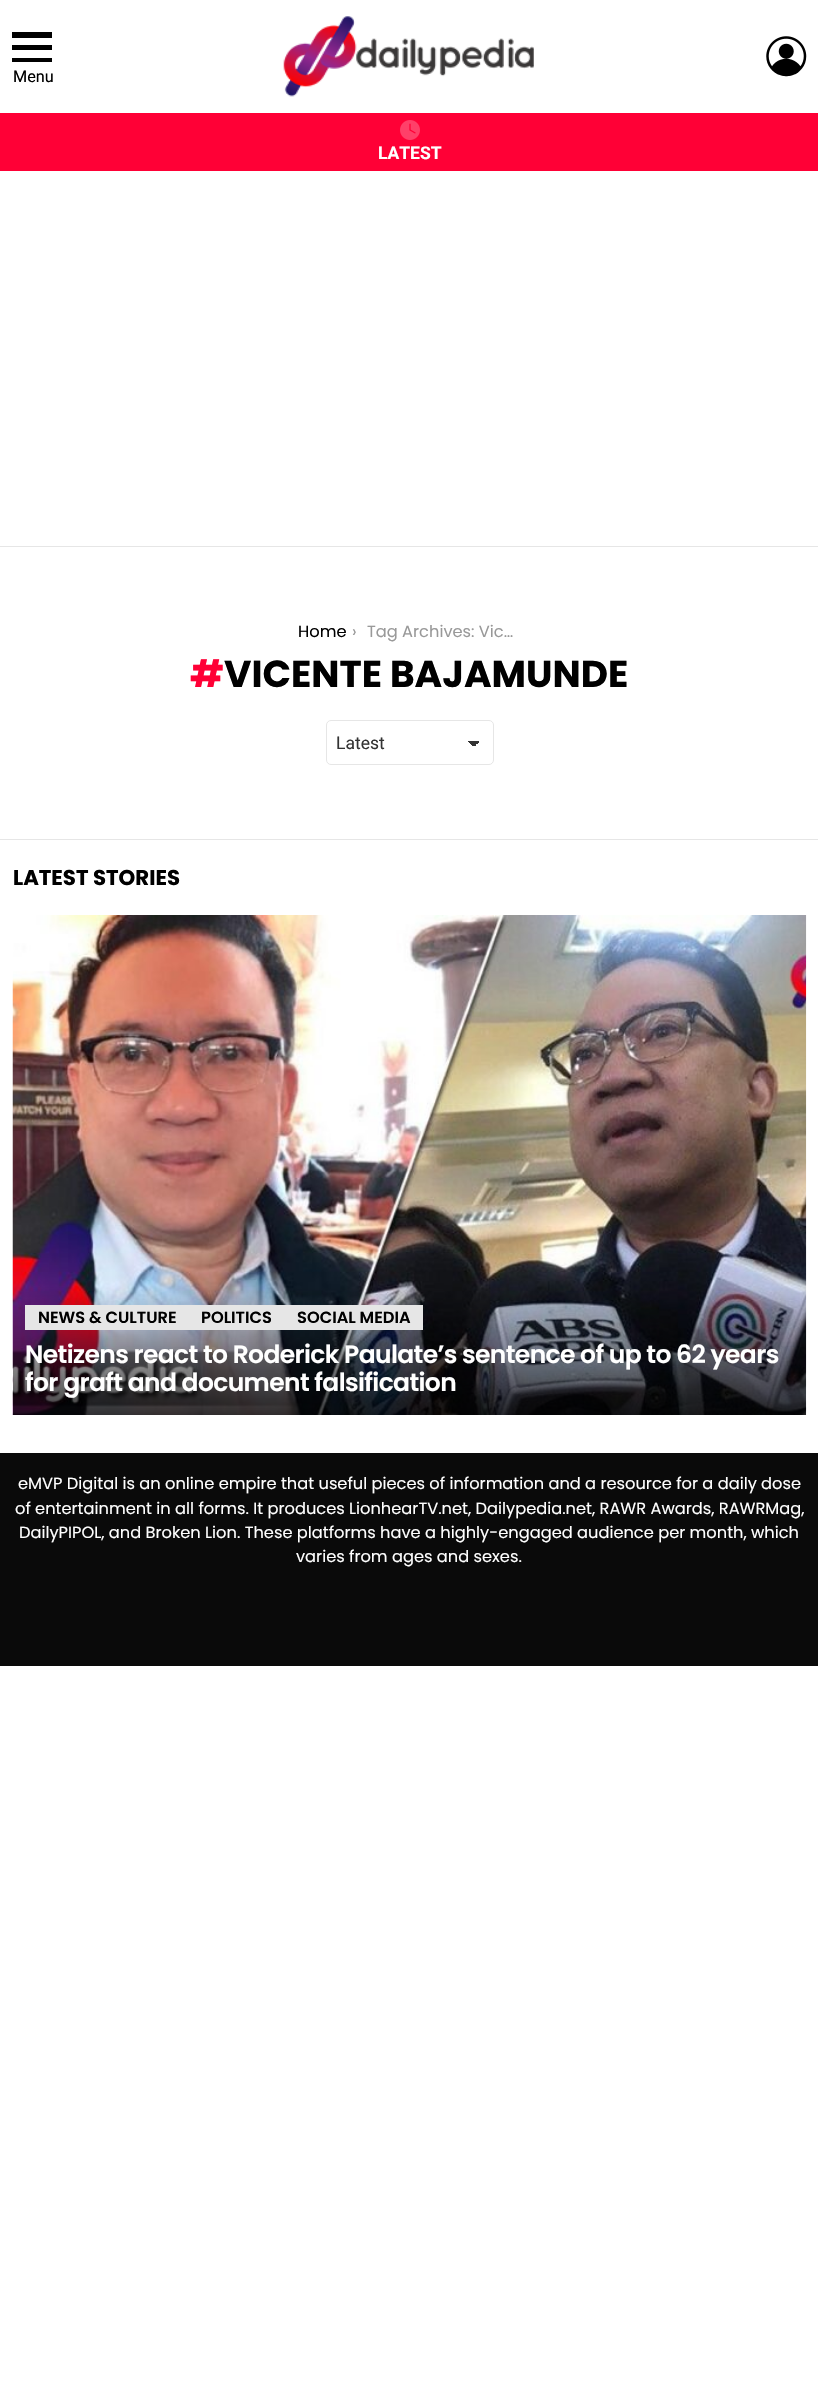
#include "include/core/SkBlurTypes.h"
#include "include/core/SkCanvas.h"
#include "include/core/SkData.h"
#include "include/core/SkFont.h"
#include "include/core/SkFontMgr.h"
#include "include/core/SkImage.h"
#include "include/core/SkMaskFilter.h"
#include "include/core/SkPaint.h"
#include "include/core/SkPathBuilder.h"
#include "include/core/SkTextBlob.h"
#include "include/effects/SkDashPathEffect.h"
#include "include/effects/SkGradientShader.h"
#include "include/utils/SkParsePath.h"

extern sk_sp<SkFontMgr> fontMgr;

static SkFont font(const char* family, int weight, float size, bool italic = false) {
    SkFontStyle style(weight, SkFontStyle::kNormal_Width,
        italic ? SkFontStyle::kItalic_Slant : SkFontStyle::kUpright_Slant);
    SkFont result(fontMgr->matchFamilyStyle(family, style), size);
    result.setSubpixel(true);
    return result;
}

static void drawLabel(SkCanvas* canvas, const char* s, float x, float y, const SkFont& font, SkColor color) {
    SkPaint ink(SkColor4f::FromColor(color));
    ink.setAntiAlias(true);
    canvas->drawString(s, x, y, font, ink);
}

static void drawTracked(SkCanvas* canvas, const char* s, float x, float y, const SkFont& font, const SkPaint& ink, float letter, float word) {
    std::vector<SkGlyphID> glyphs(font.countText(s, strlen(s), SkTextEncoding::kUTF8));
    std::vector<float> xs(glyphs.size());
    font.textToGlyphs(s, strlen(s), SkTextEncoding::kUTF8, glyphs);
    font.getXPos(glyphs, xs, x);
    float extra = 0;
    for (size_t i = 0; i < glyphs.size(); i++) {
        xs[i] += extra;
        extra += letter + word * (glyphs[i] == font.unicharToGlyph(' '));
    }
    canvas->drawTextBlob(SkTextBlob::MakeFromPosHGlyphs(glyphs, xs, y, font), 0, 0, ink);
}

static void fillRect(SkCanvas* canvas, float x, float y, float w, float h, SkColor color) {
    SkPaint ink(SkColor4f::FromColor(color));
    ink.setAntiAlias(true);
    canvas->drawRect(SkRect::MakeXYWH(x, y, w, h), ink);
}

static void drawPhoto(SkCanvas* canvas, const char* path, float x, float y, float w, float h) {
    auto image = SkImages::DeferredFromEncodedData(SkData::MakeFromFileName(path));
    canvas->drawImageRect(image, SkRect::MakeXYWH(x, y, w, h), SkSamplingOptions());
}

static SkPath parsePath(const char* data, bool evenOdd = false) {
    SkPath result = *SkParsePath::FromSVGString(data);
    if (evenOdd) result.setFillType(SkPathFillType::kEvenOdd);
    return result;
}

void draw(SkCanvas* canvas) {
    SkPaint paint;
    paint.setAntiAlias(true);
    canvas->clear(0xFFFFFFFF);
    paint.setColor(0xFF000000);
    canvas->drawPath(parsePath("M12 32H52V38H12ZM12 45H52V50H12ZM12 58H52V62H12Z"), paint);
    SkFont font1 = font("Roboto", 400, 16.25f);
    drawLabel(canvas, "Menu", 13, 82, font1, 0xFF000000);
    drawPhoto(canvas, "assets/img1.png", 283, 16, 251, 81);
    drawPhoto(canvas, "assets/img2.png", 766, 36, 41, 41);
    fillRect(canvas, 0, 113, 818, 58, 0xFFFF0036);
    drawPhoto(canvas, "assets/img3.png", 400, 120, 20, 20);
    SkFont font2 = font("Roboto", 700, 17.5f);
    drawLabel(canvas, "LATEST", 378, 159, font2, 0xFFFFFFFF);
    fillRect(canvas, 0, 546, 818, 1, 0xFFE6E6E6);
    SkFont font3 = font("Poppins", 400, 16.25f);
    drawLabel(canvas, "Home", 298, 637, font3, 0xFF000000);
    drawLabel(canvas, "›", 352, 637, font3, 0xFF999999);
    drawLabel(canvas, "Tag Archives: Vic…", 367, 637, font3, 0xFF999999);
    SkFont font4 = font("Poppins", 700, 37.5f);
    drawLabel(canvas, "#", 190, 687, font4, 0xFFFF0036);
    drawLabel(canvas, "VICENTE BAJAMUNDE", 224, 687, font4, 0xFF000000);
    {
        const SkColor colors[] = {0xFF333333, 0xFFFFFFFF};
        const float stops[] = {0.5f, 0.5f};
        const SkPoint ends[] = {{474, 741}, {480, 747}};
        paint.setShader(SkGradientShader::MakeLinear(ends, colors, stops, 2, SkTileMode::kClamp));
        paint.setAlpha(255);
    }
    canvas->drawRect(SkRect::MakeXYWH(474, 741, 6, 5), paint);
    {
        const SkColor colors[] = {0xFFFFFFFF, 0xFF333333};
        const float stops[] = {0.5f, 0.5f};
        const SkPoint ends[] = {{468, 747}, {473, 741}};
        paint.setShader(SkGradientShader::MakeLinear(ends, colors, stops, 2, SkTileMode::kClamp));
        paint.setAlpha(255);
    }
    canvas->drawRect(SkRect::MakeXYWH(468, 741, 6, 5), paint);
    paint.setStroke(true);
    paint.setStrokeWidth(1);
    paint.setShader(nullptr);
    paint.setColor(0xFFE6E6E6);
    canvas->drawRoundRect(SkRect::MakeXYWH(326.5f, 720.5f, 167, 44), 4.5f, 4.5f, paint);
    SkFont font5 = font("Roboto", 400, 17.5f);
    drawLabel(canvas, "Latest", 336, 749, font5, 0xFF333333);
    fillRect(canvas, 0, 839, 818, 1, 0xFFE6E6E6);
    SkFont font6 = font("Poppins", 700, 21.25f);
    drawLabel(canvas, "LATEST STORIES", 13, 885, font6, 0xFF000000);
    drawPhoto(canvas, "assets/img4.png", 12, 915, 795, 500);
    fillRect(canvas, 25, 1305, 398, 25, 0xFFE6E6E6);
    SkFont font7 = font("Poppins", 600, 16.25f);
    drawLabel(canvas, "NEWS & CULTURE", 38, 1323, font7, 0xFF000000);
    drawLabel(canvas, "POLITICS", 201, 1323, font7, 0xFF000000);
    drawLabel(canvas, "SOCIAL MEDIA", 297, 1323, font7, 0xFF000000);
    SkFont font8 = font("Poppins", 600, 25);
    paint.setStroke(false);
    paint.setColor(0xFFFFFFFF);
    drawTracked(canvas, "Netizens react to Roderick Paulate’s sentence of up to 62 years", 25, 1363, font8, paint, -0.62f, 0);
    drawTracked(canvas, "for graft and document falsification", 25, 1391, font8, paint, -0.62f, 0);
    fillRect(canvas, 0, 1453, 818, 213, 0xFF0A0A0A);
    drawLabel(canvas, "eMVP Digital is an online empire that useful pieces of information and a resource for a daily dose", 18, 1489, font3, 0xFFFFFFFF);
    drawLabel(canvas, "of entertainment in all forms. It produces LionhearTV.net, Dailypedia.net, RAWR Awards, RAWRMag,", 15, 1514, font3, 0xFFFFFFFF);
    drawLabel(canvas, "DailyPIPOL, and Broken Lion. These platforms have a highly-engaged audience per month, which", 19, 1538, font3, 0xFFFFFFFF);
    drawLabel(canvas, "varies from ages and sexes.", 296, 1562, font3, 0xFFFFFFFF);
}
